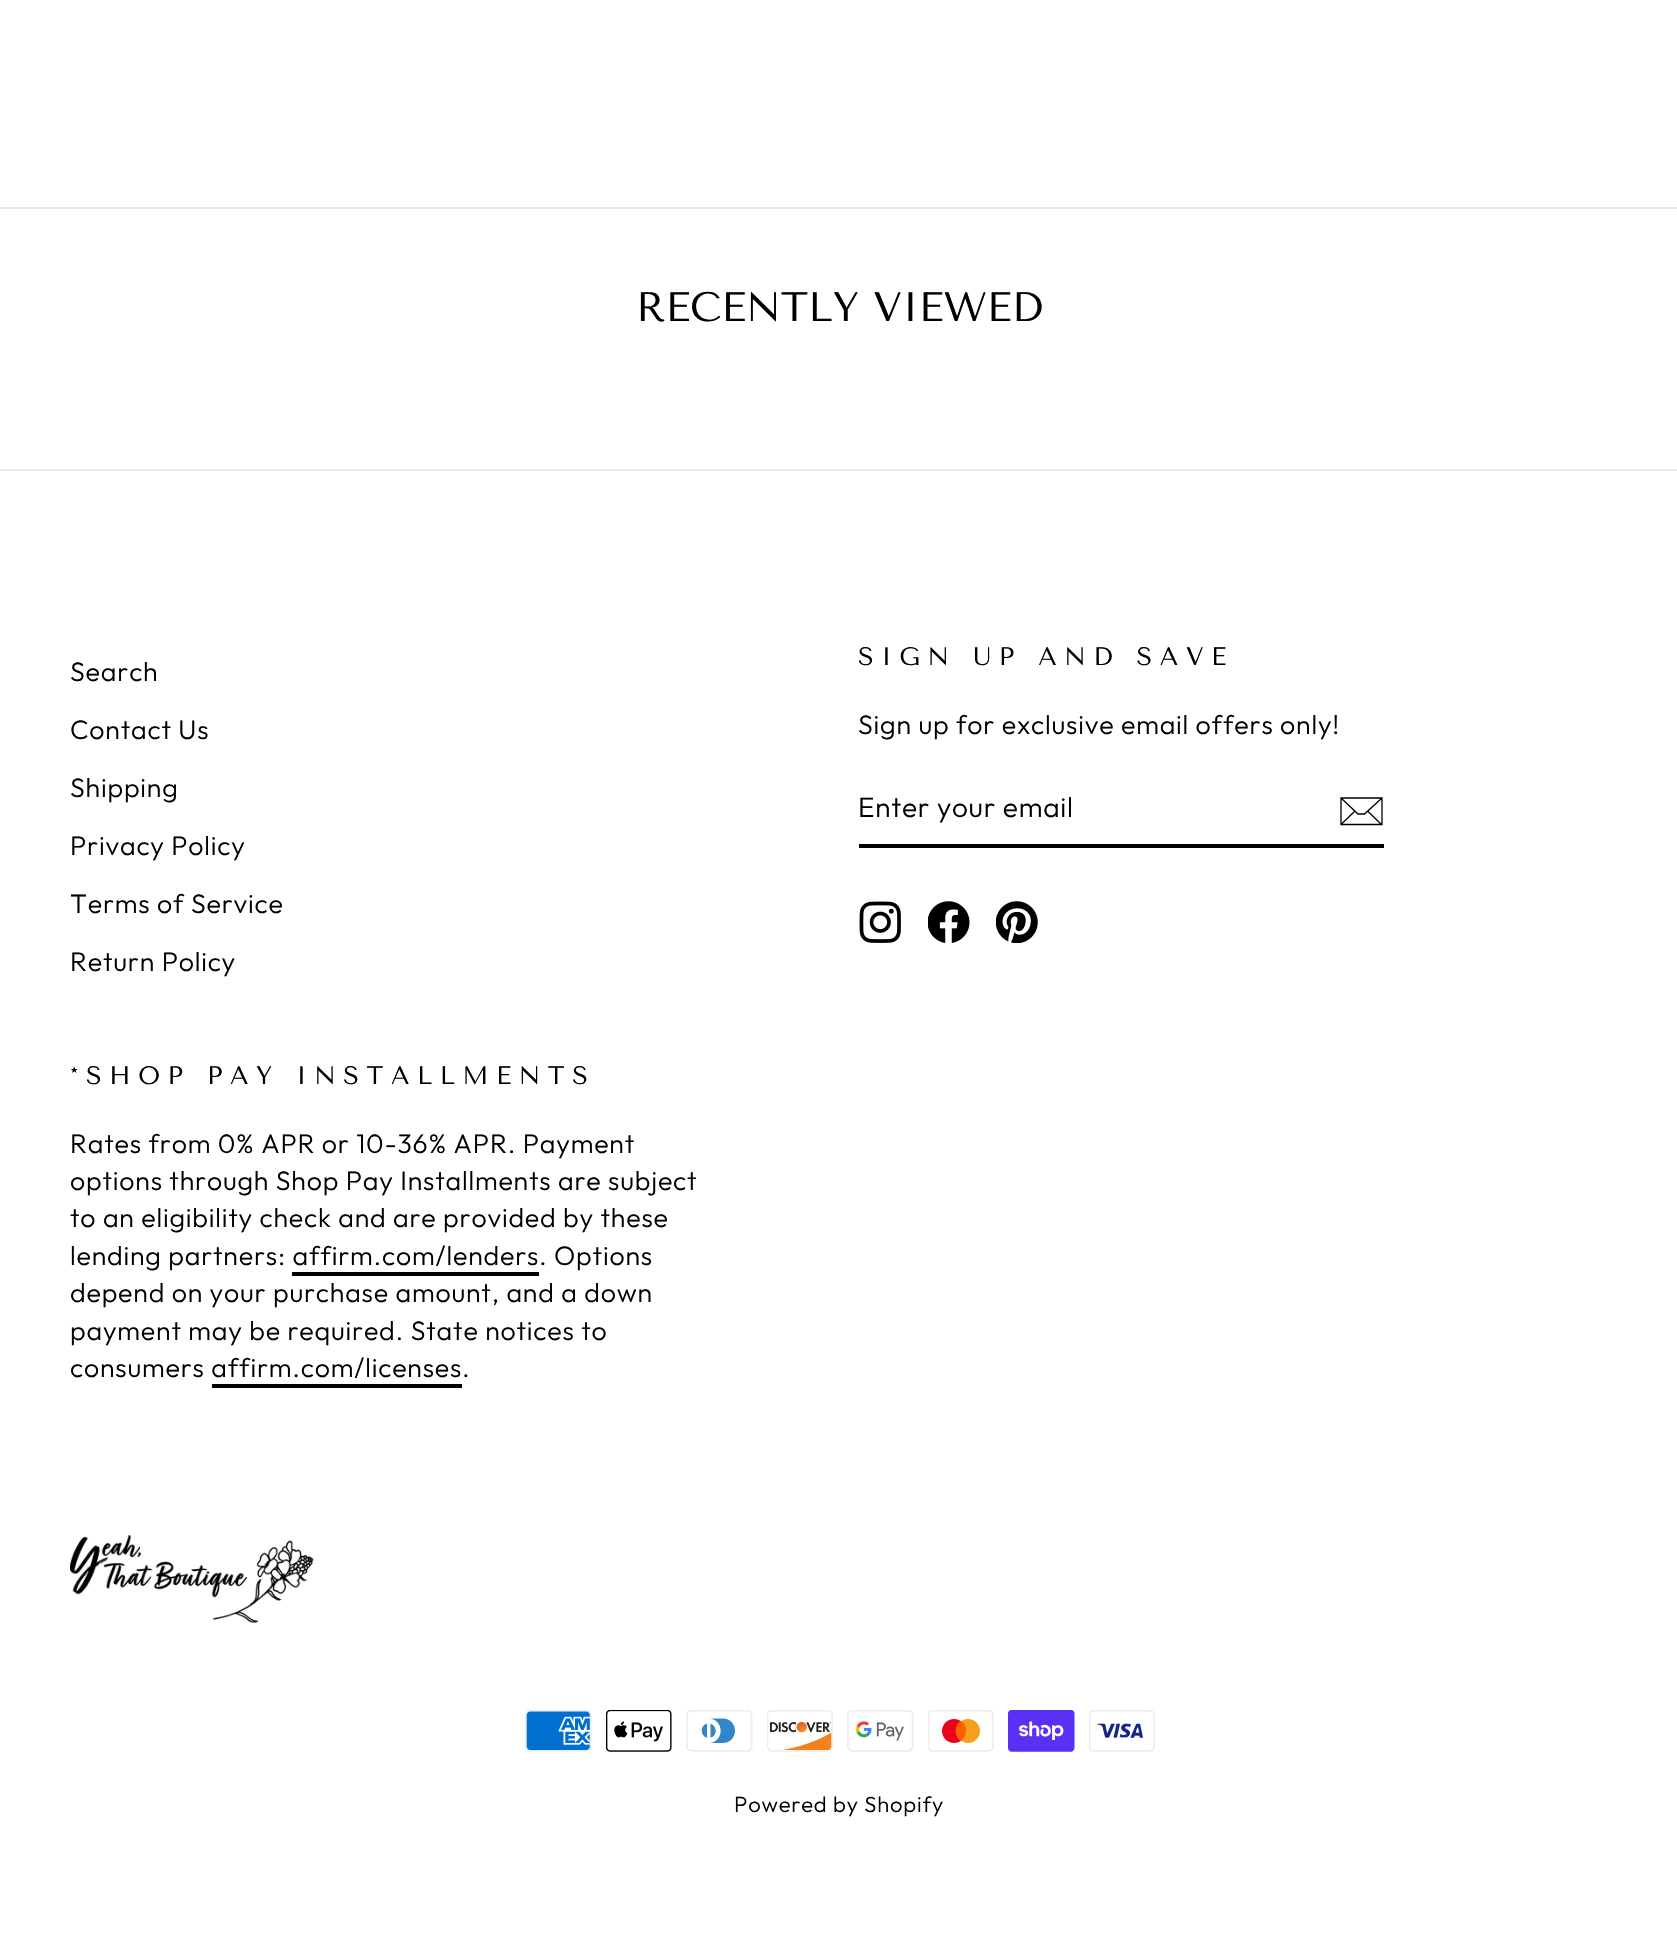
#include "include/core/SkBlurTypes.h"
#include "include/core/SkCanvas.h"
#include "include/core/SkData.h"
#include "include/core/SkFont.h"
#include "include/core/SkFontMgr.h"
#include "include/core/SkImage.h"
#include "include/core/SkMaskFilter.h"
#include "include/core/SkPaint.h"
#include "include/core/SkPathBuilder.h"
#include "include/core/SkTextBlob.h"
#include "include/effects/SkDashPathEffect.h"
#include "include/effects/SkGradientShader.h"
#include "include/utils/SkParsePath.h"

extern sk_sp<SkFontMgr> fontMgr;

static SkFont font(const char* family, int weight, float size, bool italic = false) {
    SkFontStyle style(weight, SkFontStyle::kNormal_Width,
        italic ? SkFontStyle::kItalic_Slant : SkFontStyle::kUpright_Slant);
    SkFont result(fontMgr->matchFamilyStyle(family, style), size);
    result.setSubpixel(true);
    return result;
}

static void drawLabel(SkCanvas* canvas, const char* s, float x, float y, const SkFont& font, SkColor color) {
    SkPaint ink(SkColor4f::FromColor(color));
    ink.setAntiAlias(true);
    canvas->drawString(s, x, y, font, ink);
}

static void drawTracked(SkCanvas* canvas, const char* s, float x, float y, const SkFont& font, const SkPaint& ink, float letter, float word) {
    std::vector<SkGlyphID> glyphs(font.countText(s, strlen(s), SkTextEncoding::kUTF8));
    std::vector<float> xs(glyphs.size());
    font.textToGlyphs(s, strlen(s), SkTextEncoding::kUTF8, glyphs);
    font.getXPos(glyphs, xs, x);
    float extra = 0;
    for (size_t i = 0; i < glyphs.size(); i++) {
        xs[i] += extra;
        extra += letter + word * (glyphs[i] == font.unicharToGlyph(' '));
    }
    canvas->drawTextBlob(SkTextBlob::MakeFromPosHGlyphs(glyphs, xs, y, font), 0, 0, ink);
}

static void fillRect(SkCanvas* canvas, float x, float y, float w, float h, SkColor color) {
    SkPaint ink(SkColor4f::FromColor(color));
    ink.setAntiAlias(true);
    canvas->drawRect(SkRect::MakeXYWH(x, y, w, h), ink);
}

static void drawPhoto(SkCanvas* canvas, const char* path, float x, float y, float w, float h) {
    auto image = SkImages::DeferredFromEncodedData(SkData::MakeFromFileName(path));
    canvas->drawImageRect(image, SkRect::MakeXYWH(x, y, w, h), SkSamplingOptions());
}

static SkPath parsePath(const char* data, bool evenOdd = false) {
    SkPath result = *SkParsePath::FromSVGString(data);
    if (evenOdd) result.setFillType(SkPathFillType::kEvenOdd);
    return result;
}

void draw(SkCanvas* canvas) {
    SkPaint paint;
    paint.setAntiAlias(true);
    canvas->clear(0xFFFFFFFF);
    fillRect(canvas, 0, 207, 1677, 2, 0xFFE8E8E1);
    SkFont font1 = font("Tenor Sans", 400, 41);
    drawLabel(canvas, "RECENTLY VIEWED", 636, 321, font1, 0xFF000000);
    fillRect(canvas, 0, 469, 1677, 2, 0xFFE8E8E1);
    SkFont font2 = font("Outfit", 300, 26.75f);
    paint.setColor(0xFF000000);
    drawTracked(canvas, "Search", 70, 681, font2, paint, 0.8f, 0);
    drawTracked(canvas, "Contact Us", 70, 739, font2, paint, 0.8f, 0);
    drawTracked(canvas, "Shipping", 70, 797, font2, paint, 0.8f, 0);
    drawTracked(canvas, "Privacy Policy", 70, 855, font2, paint, 0.8f, 0);
    drawTracked(canvas, "Terms of Service", 70, 913, font2, paint, 0.8f, 0);
    drawTracked(canvas, "Return Policy", 70, 971, font2, paint, 0.8f, 0);
    SkFont font3 = font("Tenor Sans", 400, 25.2f);
    drawTracked(canvas, "SIGN UP AND SAVE", 858, 665, font3, paint, 7.6f, 0);
    drawTracked(canvas, "Sign up for exclusive email offers only!", 858, 734, font2, paint, 0.8f, 0);
    fillRect(canvas, 859, 844, 525, 4, 0xFF000000);
    SkFont font4 = font("Outfit", 300, 28);
    drawTracked(canvas, "Enter your email", 858, 817, font4, paint, 0.75f, 0);
    paint.setStroke(true);
    paint.setStrokeWidth(1.3f);
    canvas->drawPath(parsePath("M1382 824.5H1341V798H1382ZM1341 798L1358 814H1364.5L1382 798M1355 811L1341.5 824M1381.5 824.5L1367.5 811"), paint);
    drawPhoto(canvas, "assets/img1.png", 859, 901, 42, 42);
    drawPhoto(canvas, "assets/img2.png", 928, 901, 42, 42);
    drawPhoto(canvas, "assets/img3.png", 996, 901, 42, 42);
    paint.setStroke(false);
    drawTracked(canvas, "*SHOP PAY INSTALLMENTS", 70, 1084, font3, paint, 7.6f, 0);
    drawTracked(canvas, "Rates from 0% APR or 10-36% APR. Payment", 70, 1153, font2, paint, 0.8f, 0);
    drawTracked(canvas, "options through Shop Pay Installments are subject", 70, 1190, font2, paint, 0.8f, 0);
    drawTracked(canvas, "to an eligibility check and are provided by these", 70, 1227, font2, paint, 0.8f, 0);
    drawTracked(canvas, "lending partners: affirm.com/lenders", 70, 1265, font2, paint, 0.8f, 0);
    drawTracked(canvas, ". Options", 539, 1265, font2, paint, 0.8f, 0);
    fillRect(canvas, 292, 1272, 247, 4, 0xFF000000);
    drawTracked(canvas, "depend on your purchase amount, and a down", 70, 1302, font2, paint, 0.8f, 0);
    drawTracked(canvas, "payment may be required. State notices to", 70, 1340, font2, paint, 0.8f, 0);
    drawTracked(canvas, "consumers affirm.com/licenses", 70, 1377, font2, paint, 0.8f, 0);
    drawTracked(canvas, ".", 462, 1377, font2, paint, 0.8f, 0);
    fillRect(canvas, 212, 1384, 250, 4, 0xFF000000);
    drawPhoto(canvas, "assets/img4.png", 70, 1535, 244, 88);
    drawPhoto(canvas, "assets/img5.png", 525, 1710, 67, 42);
    drawPhoto(canvas, "assets/img6.png", 606, 1710, 66, 42);
    drawPhoto(canvas, "assets/img7.png", 686, 1710, 67, 42);
    drawPhoto(canvas, "assets/img8.png", 767, 1710, 66, 42);
    drawPhoto(canvas, "assets/img9.png", 847, 1710, 67, 42);
    drawPhoto(canvas, "assets/img10.png", 928, 1710, 66, 42);
    drawPhoto(canvas, "assets/img11.png", 1008, 1710, 67, 42);
    drawPhoto(canvas, "assets/img12.png", 1089, 1710, 66, 42);
    SkFont font5 = font("Outfit", 300, 22);
    drawTracked(canvas, "Powered by Shopify", 734, 1812, font5, paint, 0.8f, 0);
}
